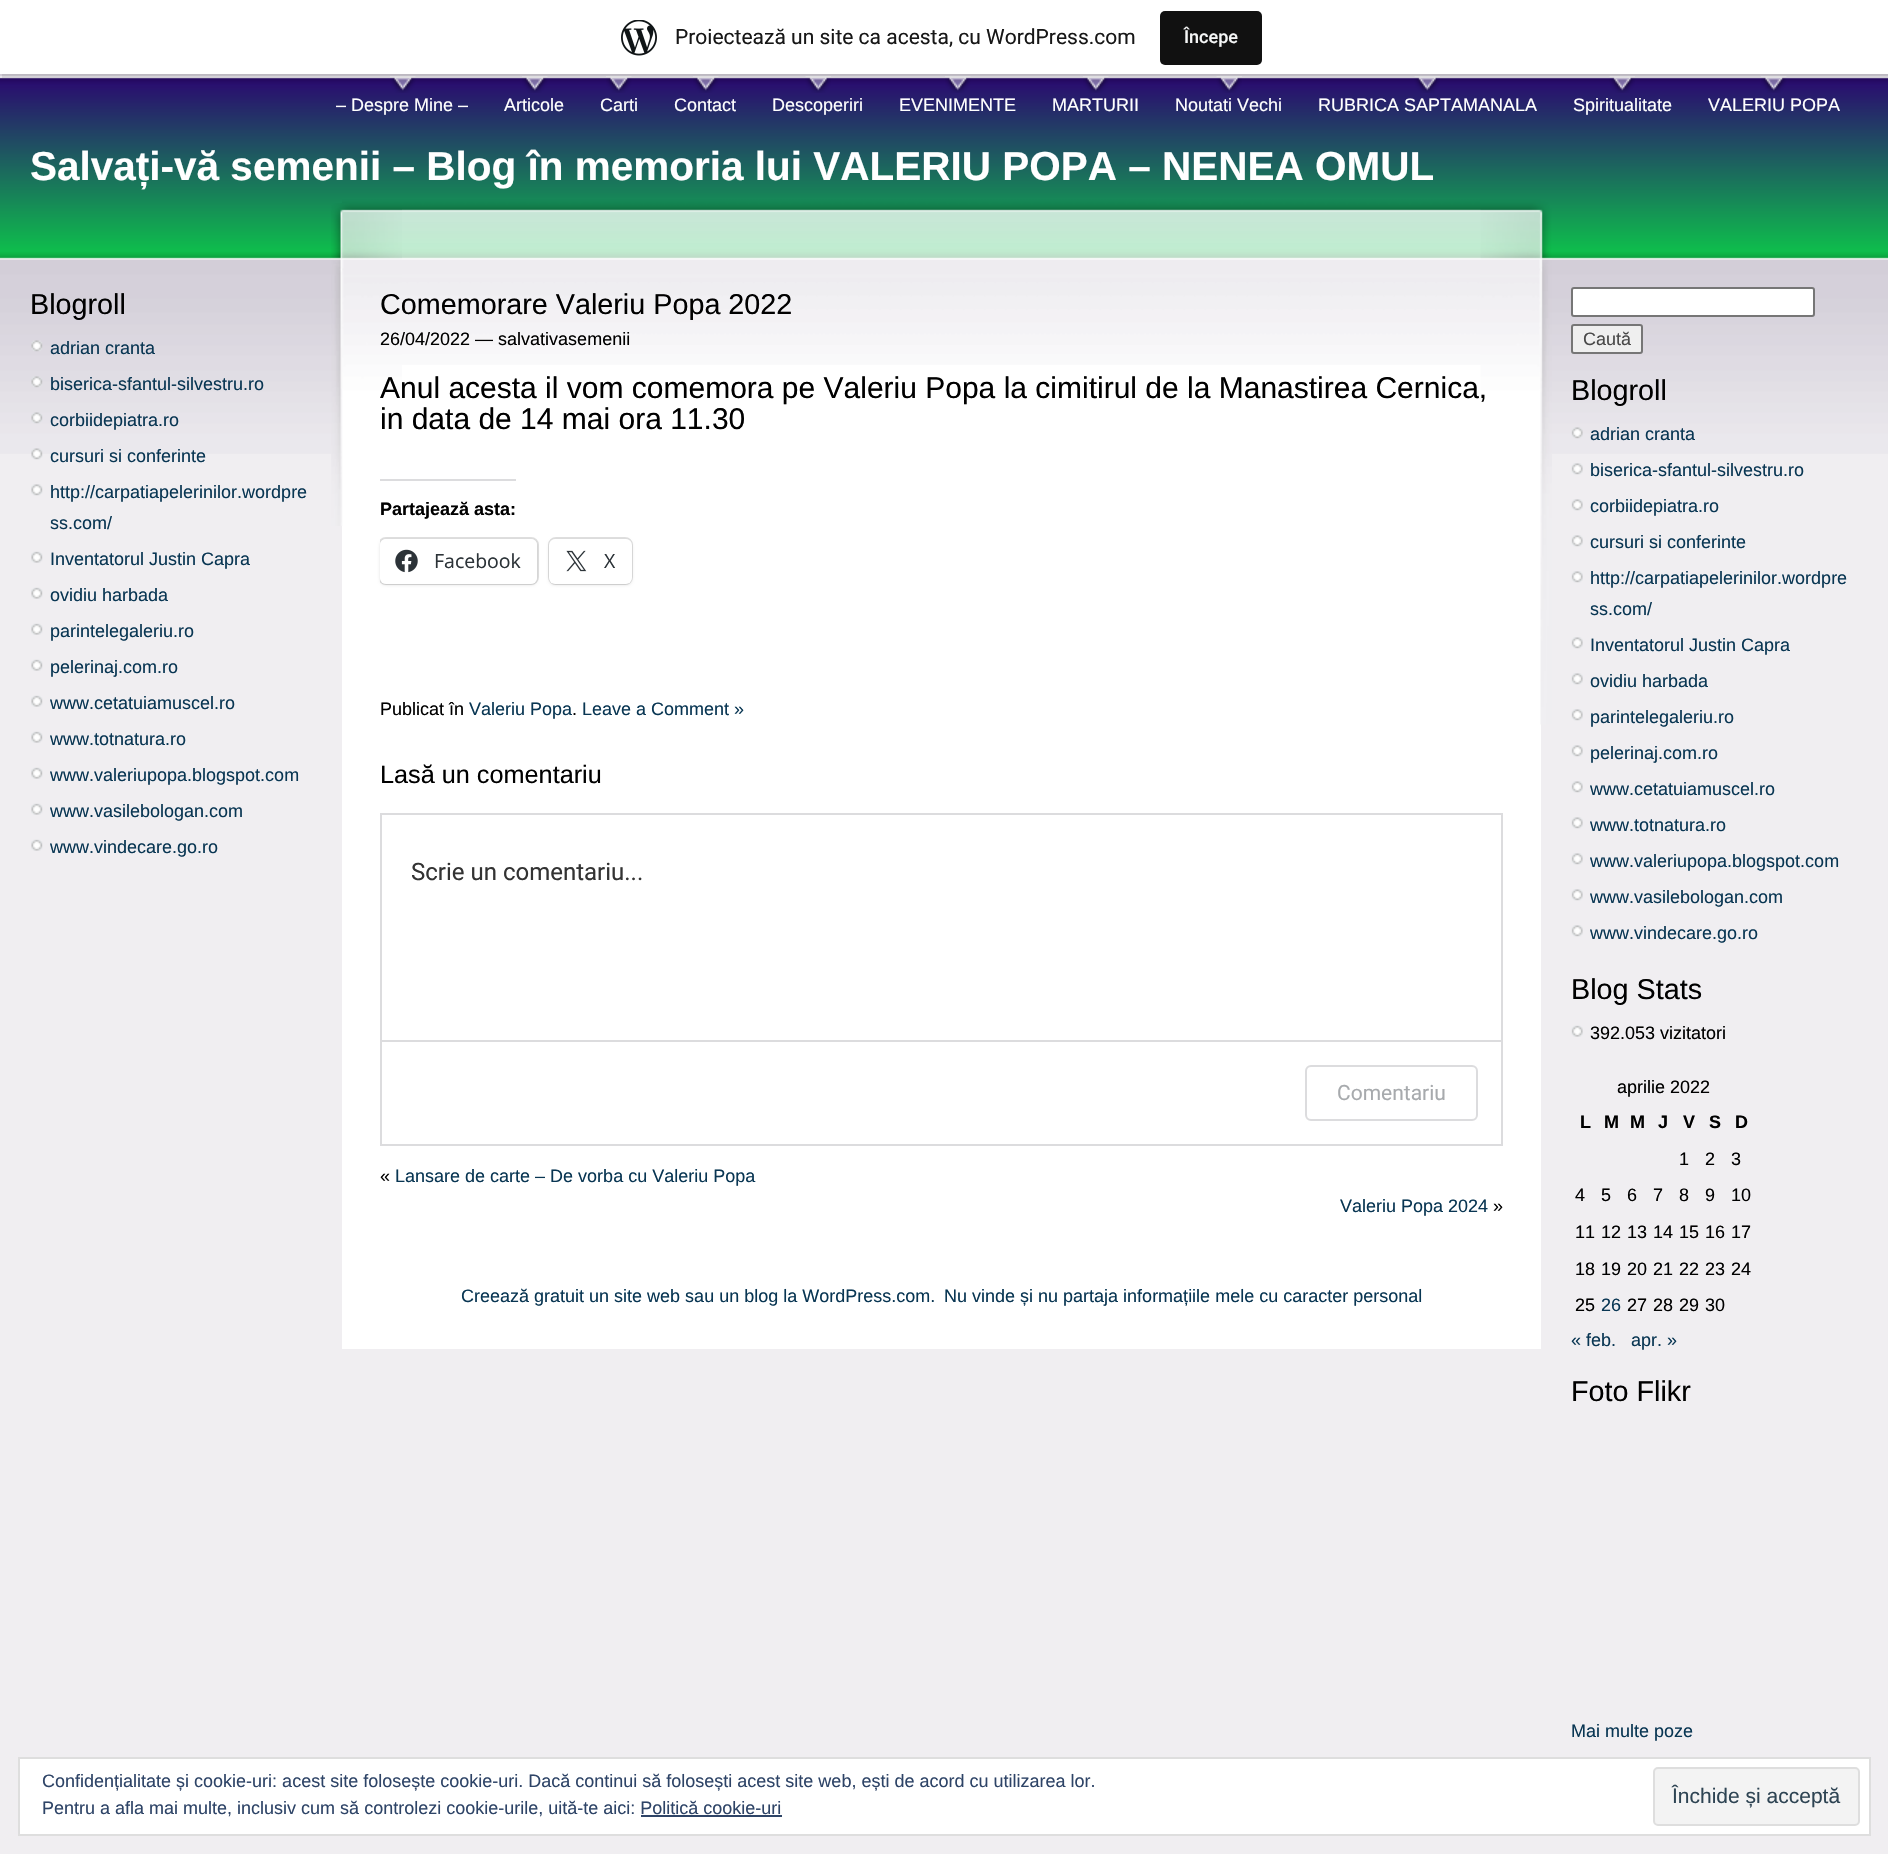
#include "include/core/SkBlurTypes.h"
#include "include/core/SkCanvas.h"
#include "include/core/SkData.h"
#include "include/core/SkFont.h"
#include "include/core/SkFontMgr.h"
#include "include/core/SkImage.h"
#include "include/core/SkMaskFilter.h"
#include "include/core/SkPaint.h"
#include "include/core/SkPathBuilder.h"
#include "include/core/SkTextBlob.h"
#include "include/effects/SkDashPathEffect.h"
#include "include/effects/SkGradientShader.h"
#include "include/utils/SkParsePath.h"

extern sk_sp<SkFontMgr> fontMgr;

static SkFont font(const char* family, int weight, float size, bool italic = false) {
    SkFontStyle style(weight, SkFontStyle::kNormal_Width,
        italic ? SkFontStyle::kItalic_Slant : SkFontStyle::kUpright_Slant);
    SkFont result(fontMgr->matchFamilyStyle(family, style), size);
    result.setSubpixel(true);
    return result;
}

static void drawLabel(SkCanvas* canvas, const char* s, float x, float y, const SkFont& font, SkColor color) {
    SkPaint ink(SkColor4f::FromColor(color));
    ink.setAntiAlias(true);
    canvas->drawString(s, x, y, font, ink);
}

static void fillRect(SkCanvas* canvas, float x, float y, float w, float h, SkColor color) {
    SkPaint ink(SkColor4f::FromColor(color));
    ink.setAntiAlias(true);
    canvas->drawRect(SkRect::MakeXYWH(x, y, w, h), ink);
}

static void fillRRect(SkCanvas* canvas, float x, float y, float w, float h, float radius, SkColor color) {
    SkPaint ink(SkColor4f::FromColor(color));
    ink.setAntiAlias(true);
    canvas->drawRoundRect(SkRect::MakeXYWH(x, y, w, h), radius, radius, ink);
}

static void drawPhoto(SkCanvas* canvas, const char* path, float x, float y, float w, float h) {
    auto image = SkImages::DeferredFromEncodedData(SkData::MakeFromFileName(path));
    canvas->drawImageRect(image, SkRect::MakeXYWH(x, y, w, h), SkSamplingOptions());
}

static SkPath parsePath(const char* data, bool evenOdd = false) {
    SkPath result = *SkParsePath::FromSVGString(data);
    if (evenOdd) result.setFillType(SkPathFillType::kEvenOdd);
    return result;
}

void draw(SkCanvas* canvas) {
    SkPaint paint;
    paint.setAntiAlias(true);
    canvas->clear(0xFFF0EEF1);
    fillRect(canvas, 0, 74, 1888, 3, 0xFFD5D0DA);
    drawPhoto(canvas, "assets/img2.png", 0, 76, 1888, 378);
    drawPhoto(canvas, "assets/img3.png", 390, 76, 26, 17);
    drawPhoto(canvas, "assets/img4.png", 522, 76, 26, 17);
    drawPhoto(canvas, "assets/img5.png", 606, 76, 26, 17);
    drawPhoto(canvas, "assets/img5.png", 693, 76, 26, 17);
    drawPhoto(canvas, "assets/img6.png", 805, 76, 26, 17);
    drawPhoto(canvas, "assets/img5.png", 945, 76, 26, 17);
    drawPhoto(canvas, "assets/img3.png", 1083, 76, 26, 17);
    drawPhoto(canvas, "assets/img6.png", 1216, 76, 26, 17);
    drawPhoto(canvas, "assets/img7.png", 1414, 76, 26, 17);
    drawPhoto(canvas, "assets/img6.png", 1609, 76, 26, 17);
    drawPhoto(canvas, "assets/img5.png", 1761, 76, 26, 17);
    paint.setColor(0x0D000000);
    paint.setMaskFilter(SkMaskFilter::MakeBlur(kNormal_SkBlurStyle, 1.5f));
    canvas->drawRect(SkRect::MakeXYWH(0, 2, 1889, 73), paint);
    paint.setMaskFilter(nullptr);
    paint.setColor(0x14000000);
    canvas->drawPath(parsePath("M2 74V78H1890V5H1888V74Z"), paint);
    fillRect(canvas, 0, 0, 1888, 74, 0xFFFFFFFF);
    drawPhoto(canvas, "assets/img1.png", 621, 20, 36, 36);
    SkFont font1 = font("Roboto", 400, 21);
    drawLabel(canvas, "Proiectează un site ca acesta, cu WordPress.com", 675, 44, font1, 0xFF171717);
    fillRRect(canvas, 1160, 11, 102, 54, 5, 0xFF111111);
    SkFont font2 = font("Roboto", 500, 18);
    drawLabel(canvas, "Începe", 1184, 43, font2, 0xFFF6F7F7);
    SkFont font3 = font("Liberation Sans", 400, 18);
    drawLabel(canvas, "– Despre Mine –", 336, 111, font3, 0xFFFFFFFF);
    drawLabel(canvas, "Articole", 504, 111, font3, 0xFFFFFFFF);
    drawLabel(canvas, "Carti", 600, 111, font3, 0xFFFFFFFF);
    drawLabel(canvas, "Contact", 674, 111, font3, 0xFFFFFFFF);
    drawLabel(canvas, "Descoperiri", 772, 111, font3, 0xFFFFFFFF);
    drawLabel(canvas, "EVENIMENTE", 899, 111, font3, 0xFFFFFFFF);
    drawLabel(canvas, "MARTURII", 1052, 111, font3, 0xFFFFFFFF);
    drawLabel(canvas, "Noutati Vechi", 1175, 111, font3, 0xFFFFFFFF);
    drawLabel(canvas, "RUBRICA SAPTAMANALA", 1318, 111, font3, 0xFFFFFFFF);
    drawLabel(canvas, "Spiritualitate", 1573, 111, font3, 0xFFFFFFFF);
    drawLabel(canvas, "VALERIU POPA", 1708, 111, font3, 0xFFFFFFFF);
    SkFont font4 = font("Liberation Sans", 700, 40.5f);
    drawLabel(canvas, "Salvați-vă semenii – Blog în memoria lui VALERIU POPA – NENEA OMUL", 30, 180, font4, 0xFFFFFFFF);
    SkFont font5 = font("Liberation Sans", 400, 28.75f);
    drawLabel(canvas, "Blogroll", 30, 314, font5, 0xFF000000);
    drawPhoto(canvas, "assets/img8.png", 31, 340, 12, 12);
    drawLabel(canvas, "adrian cranta", 50, 354, font3, 0xFF093653);
    drawPhoto(canvas, "assets/img9.png", 31, 376, 12, 12);
    drawLabel(canvas, "biserica-sfantul-silvestru.ro", 50, 390, font3, 0xFF093653);
    drawPhoto(canvas, "assets/img10.png", 31, 412, 12, 12);
    drawLabel(canvas, "corbiidepiatra.ro", 50, 426, font3, 0xFF093653);
    drawPhoto(canvas, "assets/img11.png", 31, 448, 12, 12);
    drawLabel(canvas, "cursuri si conferinte", 50, 462, font3, 0xFF093653);
    drawPhoto(canvas, "assets/img12.png", 31, 484, 12, 12);
    drawLabel(canvas, "http://carpatiapelerinilor.wordpre", 50, 498, font3, 0xFF093653);
    drawLabel(canvas, "ss.com/", 50, 529, font3, 0xFF093653);
    drawPhoto(canvas, "assets/img13.png", 31, 551, 12, 12);
    drawLabel(canvas, "Inventatorul Justin Capra", 50, 565, font3, 0xFF093653);
    drawPhoto(canvas, "assets/img13.png", 31, 587, 12, 12);
    drawLabel(canvas, "ovidiu harbada", 50, 601, font3, 0xFF093653);
    drawPhoto(canvas, "assets/img13.png", 31, 623, 12, 12);
    drawLabel(canvas, "parintelegaleriu.ro", 50, 637, font3, 0xFF093653);
    drawPhoto(canvas, "assets/img13.png", 31, 659, 12, 12);
    drawLabel(canvas, "pelerinaj.com.ro", 50, 673, font3, 0xFF093653);
    drawPhoto(canvas, "assets/img13.png", 31, 695, 12, 12);
    drawLabel(canvas, "www.cetatuiamuscel.ro", 50, 709, font3, 0xFF093653);
    drawPhoto(canvas, "assets/img13.png", 31, 731, 12, 12);
    drawLabel(canvas, "www.totnatura.ro", 50, 745, font3, 0xFF093653);
    drawPhoto(canvas, "assets/img13.png", 31, 767, 12, 12);
    drawLabel(canvas, "www.valeriupopa.blogspot.com", 50, 781, font3, 0xFF093653);
    drawPhoto(canvas, "assets/img13.png", 31, 803, 12, 12);
    drawLabel(canvas, "www.vasilebologan.com", 50, 817, font3, 0xFF093653);
    drawPhoto(canvas, "assets/img13.png", 31, 839, 12, 12);
    drawLabel(canvas, "www.vindecare.go.ro", 50, 853, font3, 0xFF093653);
    fillRect(canvas, 342, 365, 1199, 984, 0xFFFFFFFF);
    drawPhoto(canvas, "assets/img14.png", 342, 197, 1139, 168);
    drawPhoto(canvas, "assets/img15.png", 1480, 197, 72, 528);
    drawPhoto(canvas, "assets/img16.png", 331, 203, 71, 323);
    drawLabel(canvas, "Comemorare Valeriu Popa 2022", 380, 314, font5, 0xFF000000);
    drawLabel(canvas, "26/04/2022 — salvativasemenii", 380, 345, font3, 0xFF000000);
    SkFont font6 = font("Liberation Sans", 400, 30);
    drawLabel(canvas, "Anul acesta il vom comemora pe Valeriu Popa la cimitirul de la Manastirea Cernica,", 380, 398, font6, 0xFF000000);
    drawLabel(canvas, "in data de 14 mai ora 11.30", 380, 429, font6, 0xFF000000);
    fillRect(canvas, 380, 479, 136, 2, 0xFFDCDCDE);
    SkFont font7 = font("Liberation Sans", 700, 18);
    drawLabel(canvas, "Partajează asta:", 380, 515, font7, 0xFF000000);
    canvas->save();
    canvas->clipRect(SkRect::MakeXYWH(380, 287, 1123, 438));
    paint.setStroke(true);
    paint.setStrokeWidth(2);
    paint.setColor(0xFFE0E0E0);
    canvas->drawRoundRect(SkRect::MakeXYWH(379, 538, 159, 46), 7, 7, paint);
    canvas->restore();
    canvas->save();
    canvas->clipPath(parsePath("M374 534H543V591H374ZM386 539H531C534.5 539 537 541.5 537 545V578C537 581.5 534.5 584 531 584H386C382.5 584 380 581.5 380 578V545C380 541.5 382.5 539 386 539Z", true), true);
    paint.setStroke(false);
    paint.setColor(0x1F000000);
    paint.setMaskFilter(SkMaskFilter::MakeBlur(kNormal_SkBlurStyle, 1.5f));
    canvas->drawRoundRect(SkRect::MakeXYWH(380, 540, 157, 45), 6, 6, paint);
    paint.setMaskFilter(nullptr);
    canvas->restore();
    fillRRect(canvas, 380, 539, 157, 45, 6, 0xFFFFFFFF);
    drawPhoto(canvas, "assets/img17.png", 395, 549, 23, 24);
    SkFont font8 = font("Open Sans", 400, 19.5f);
    drawLabel(canvas, "Facebook", 434, 568, font8, 0xFF2C3338);
    paint.setStroke(true);
    paint.setColor(0xFFE0E0E0);
    canvas->drawRoundRect(SkRect::MakeXYWH(549, 538, 83, 46), 7, 7, paint);
    paint.setStroke(false);
    paint.setColor(0x1F000000);
    paint.setMaskFilter(SkMaskFilter::MakeBlur(kNormal_SkBlurStyle, 1.5f));
    canvas->drawRoundRect(SkRect::MakeXYWH(549, 540, 83, 45), 6, 6, paint);
    paint.setMaskFilter(nullptr);
    fillRRect(canvas, 549, 539, 83, 45, 6, 0xFFFFFFFF);
    drawPhoto(canvas, "assets/img18.png", 566, 550, 21, 22);
    drawLabel(canvas, "X", 604, 568, font8, 0xFF2C3338);
    drawLabel(canvas, "Publicat în", 380, 715, font3, 0xFF000000);
    drawLabel(canvas, "Valeriu Popa", 469, 715, font3, 0xFF093653);
    drawLabel(canvas, ".", 572, 715, font3, 0xFF000000);
    drawLabel(canvas, "Leave a Comment »", 582, 715, font3, 0xFF093653);
    SkFont font9 = font("Liberation Sans", 400, 25.25f);
    drawLabel(canvas, "Lasă un comentariu", 380, 783, font9, 0xFF000000);
    paint.setStroke(true);
    paint.setColor(0xFFDCDCDE);
    canvas->drawRect(SkRect::MakeXYWH(381, 814, 1121, 331), paint);
    SkFont font10 = font("Roboto", 400, 24);
    drawLabel(canvas, "Scrie un comentariu...", 411, 880, font10, 0xFF333333);
    fillRect(canvas, 381, 1040, 1121, 2, 0xFFDCDCDE);
    canvas->drawRoundRect(SkRect::MakeXYWH(1306, 1066, 171, 54), 5, 5, paint);
    drawLabel(canvas, "Comentariu", 1337, 1100, font1, 0xFFA7AAAD);
    drawLabel(canvas, "«", 380, 1182, font3, 0xFF000000);
    drawLabel(canvas, "Lansare de carte – De vorba cu Valeriu Popa", 395, 1182, font3, 0xFF093653);
    drawLabel(canvas, "Valeriu Popa 2024", 1340, 1212, font3, 0xFF093653);
    drawLabel(canvas, "»", 1493, 1212, font3, 0xFF000000);
    drawLabel(canvas, "Creează gratuit un site web sau un blog la WordPress.com.", 461, 1302, font3, 0xFF093653);
    drawLabel(canvas, "Nu vinde și nu partaja informațiile mele cu caracter personal", 944, 1302, font3, 0xFF093653);
    paint.setStroke(false);
    paint.setColor(0xFFFFFFFF);
    canvas->drawRoundRect(SkRect::MakeXYWH(1572, 288, 242, 28), 2, 2, paint);
    paint.setStroke(true);
    paint.setColor(0xFF767676);
    canvas->drawRoundRect(SkRect::MakeXYWH(1572, 288, 242, 28), 2, 2, paint);
    paint.setStroke(false);
    paint.setColor(0xFFEFEFEF);
    canvas->drawRoundRect(SkRect::MakeXYWH(1572, 325, 70, 28), 2, 2, paint);
    paint.setStroke(true);
    paint.setColor(0xFF767676);
    canvas->drawRoundRect(SkRect::MakeXYWH(1572, 325, 70, 28), 2, 2, paint);
    drawLabel(canvas, "Caută", 1583, 345, font3, 0xFF494949);
    drawLabel(canvas, "Blogroll", 1571, 400, font5, 0xFF000000);
    drawPhoto(canvas, "assets/img19.png", 1571, 427, 12, 12);
    drawLabel(canvas, "adrian cranta", 1590, 440, font3, 0xFF093653);
    drawPhoto(canvas, "assets/img20.png", 1571, 463, 12, 12);
    drawLabel(canvas, "biserica-sfantul-silvestru.ro", 1590, 476, font3, 0xFF093653);
    drawPhoto(canvas, "assets/img20.png", 1571, 499, 12, 12);
    drawLabel(canvas, "corbiidepiatra.ro", 1590, 512, font3, 0xFF093653);
    drawPhoto(canvas, "assets/img20.png", 1571, 535, 12, 12);
    drawLabel(canvas, "cursuri si conferinte", 1590, 548, font3, 0xFF093653);
    drawPhoto(canvas, "assets/img20.png", 1571, 571, 12, 12);
    drawLabel(canvas, "http://carpatiapelerinilor.wordpre", 1590, 584, font3, 0xFF093653);
    drawLabel(canvas, "ss.com/", 1590, 615, font3, 0xFF093653);
    drawPhoto(canvas, "assets/img20.png", 1571, 637, 12, 12);
    drawLabel(canvas, "Inventatorul Justin Capra", 1590, 651, font3, 0xFF093653);
    drawPhoto(canvas, "assets/img20.png", 1571, 673, 12, 12);
    drawLabel(canvas, "ovidiu harbada", 1590, 687, font3, 0xFF093653);
    drawPhoto(canvas, "assets/img20.png", 1571, 709, 12, 12);
    drawLabel(canvas, "parintelegaleriu.ro", 1590, 723, font3, 0xFF093653);
    drawPhoto(canvas, "assets/img20.png", 1571, 745, 12, 12);
    drawLabel(canvas, "pelerinaj.com.ro", 1590, 759, font3, 0xFF093653);
    drawPhoto(canvas, "assets/img20.png", 1571, 781, 12, 12);
    drawLabel(canvas, "www.cetatuiamuscel.ro", 1590, 795, font3, 0xFF093653);
    drawPhoto(canvas, "assets/img20.png", 1571, 817, 12, 12);
    drawLabel(canvas, "www.totnatura.ro", 1590, 831, font3, 0xFF093653);
    drawPhoto(canvas, "assets/img20.png", 1571, 853, 12, 12);
    drawLabel(canvas, "www.valeriupopa.blogspot.com", 1590, 867, font3, 0xFF093653);
    drawPhoto(canvas, "assets/img20.png", 1571, 889, 12, 12);
    drawLabel(canvas, "www.vasilebologan.com", 1590, 903, font3, 0xFF093653);
    drawPhoto(canvas, "assets/img20.png", 1571, 925, 12, 12);
    drawLabel(canvas, "www.vindecare.go.ro", 1590, 939, font3, 0xFF093653);
    drawLabel(canvas, "Blog Stats", 1571, 999, font5, 0xFF000000);
    drawPhoto(canvas, "assets/img21.png", 1571, 1025, 12, 12);
    drawLabel(canvas, "392.053 vizitatori", 1590, 1039, font3, 0xFF000000);
    drawLabel(canvas, "aprilie 2022", 1617, 1093, font3, 0xFF000000);
    drawLabel(canvas, "L", 1580, 1128, font7, 0xFF000000);
    drawLabel(canvas, "M", 1604, 1128, font7, 0xFF000000);
    drawLabel(canvas, "M", 1630, 1128, font7, 0xFF000000);
    drawLabel(canvas, "J", 1658, 1128, font7, 0xFF000000);
    drawLabel(canvas, "V", 1683, 1128, font7, 0xFF000000);
    drawLabel(canvas, "S", 1709, 1128, font7, 0xFF000000);
    drawLabel(canvas, "D", 1735, 1128, font7, 0xFF000000);
    drawLabel(canvas, "1", 1679, 1165, font3, 0xFF000000);
    drawLabel(canvas, "2", 1705, 1165, font3, 0xFF000000);
    drawLabel(canvas, "3", 1731, 1165, font3, 0xFF000000);
    drawLabel(canvas, "4", 1575, 1201, font3, 0xFF000000);
    drawLabel(canvas, "5", 1601, 1201, font3, 0xFF000000);
    drawLabel(canvas, "6", 1627, 1201, font3, 0xFF000000);
    drawLabel(canvas, "7", 1653, 1201, font3, 0xFF000000);
    drawLabel(canvas, "8", 1679, 1201, font3, 0xFF000000);
    drawLabel(canvas, "9", 1705, 1201, font3, 0xFF000000);
    drawLabel(canvas, "10", 1731, 1201, font3, 0xFF000000);
    drawLabel(canvas, "11", 1575, 1238, font3, 0xFF000000);
    drawLabel(canvas, "12", 1601, 1238, font3, 0xFF000000);
    drawLabel(canvas, "13", 1627, 1238, font3, 0xFF000000);
    drawLabel(canvas, "14", 1653, 1238, font3, 0xFF000000);
    drawLabel(canvas, "15", 1679, 1238, font3, 0xFF000000);
    drawLabel(canvas, "16", 1705, 1238, font3, 0xFF000000);
    drawLabel(canvas, "17", 1731, 1238, font3, 0xFF000000);
    drawLabel(canvas, "18", 1575, 1275, font3, 0xFF000000);
    drawLabel(canvas, "19", 1601, 1275, font3, 0xFF000000);
    drawLabel(canvas, "20", 1627, 1275, font3, 0xFF000000);
    drawLabel(canvas, "21", 1653, 1275, font3, 0xFF000000);
    drawLabel(canvas, "22", 1679, 1275, font3, 0xFF000000);
    drawLabel(canvas, "23", 1705, 1275, font3, 0xFF000000);
    drawLabel(canvas, "24", 1731, 1275, font3, 0xFF000000);
    drawLabel(canvas, "25", 1575, 1311, font3, 0xFF000000);
    drawLabel(canvas, "26", 1601, 1311, font3, 0xFF093653);
    drawLabel(canvas, "27", 1627, 1311, font3, 0xFF000000);
    drawLabel(canvas, "28", 1653, 1311, font3, 0xFF000000);
    drawLabel(canvas, "29", 1679, 1311, font3, 0xFF000000);
    drawLabel(canvas, "30", 1705, 1311, font3, 0xFF000000);
    drawLabel(canvas, "« feb.", 1571, 1346, font3, 0xFF093653);
    drawLabel(canvas, "apr. »", 1631, 1346, font3, 0xFF093653);
    drawLabel(canvas, "Foto Flikr", 1571, 1401, font5, 0xFF000000);
    drawLabel(canvas, "Mai multe poze", 1571, 1737, font3, 0xFF093653);
    paint.setStroke(false);
    paint.setColor(0xFFFFFFFF);
    canvas->drawRect(SkRect::MakeXYWH(19, 1758, 1851, 77), paint);
    paint.setStroke(true);
    paint.setColor(0xFFDEDEDE);
    canvas->drawRect(SkRect::MakeXYWH(19, 1758, 1851, 77), paint);
    drawLabel(canvas, "Confidențialitate și cookie-uri: acest site folosește cookie-uri. Dacă continui să folosești acest site web, ești de acord cu utilizarea lor.", 42, 1787, font3, 0xFF2E4467);
    drawLabel(canvas, "Pentru a afla mai multe, inclusiv cum să controlezi cookie-urile, uită-te aici: Politică cookie-uri", 42, 1814, font3, 0xFF2E4467);
    paint.setStroke(false);
    paint.setColor(0xFFF3F3F3);
    canvas->drawRoundRect(SkRect::MakeXYWH(1654, 1768, 205, 57), 4, 4, paint);
    paint.setStroke(true);
    paint.setColor(0xFFDEDEDE);
    canvas->drawRoundRect(SkRect::MakeXYWH(1654, 1768, 205, 57), 4, 4, paint);
    SkFont font11 = font("Liberation Sans", 400, 21);
    drawLabel(canvas, "Închide și acceptă", 1672, 1803, font11, 0xFF2E4453);
    fillRect(canvas, 641, 1815, 141, 2, 0xFF2E4467);
}
